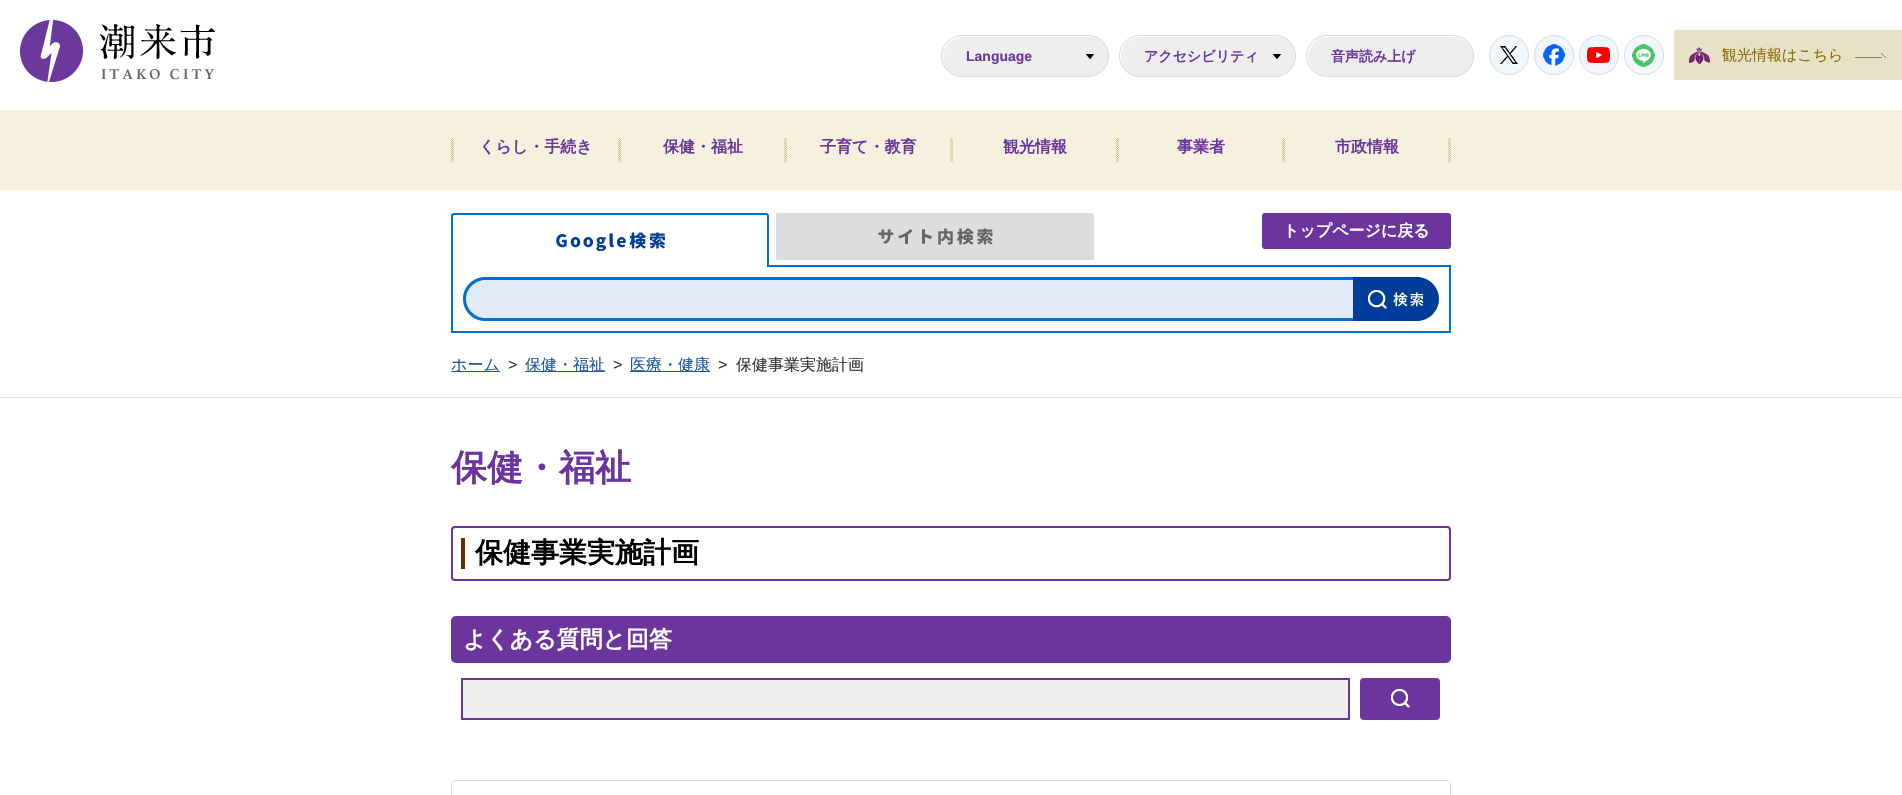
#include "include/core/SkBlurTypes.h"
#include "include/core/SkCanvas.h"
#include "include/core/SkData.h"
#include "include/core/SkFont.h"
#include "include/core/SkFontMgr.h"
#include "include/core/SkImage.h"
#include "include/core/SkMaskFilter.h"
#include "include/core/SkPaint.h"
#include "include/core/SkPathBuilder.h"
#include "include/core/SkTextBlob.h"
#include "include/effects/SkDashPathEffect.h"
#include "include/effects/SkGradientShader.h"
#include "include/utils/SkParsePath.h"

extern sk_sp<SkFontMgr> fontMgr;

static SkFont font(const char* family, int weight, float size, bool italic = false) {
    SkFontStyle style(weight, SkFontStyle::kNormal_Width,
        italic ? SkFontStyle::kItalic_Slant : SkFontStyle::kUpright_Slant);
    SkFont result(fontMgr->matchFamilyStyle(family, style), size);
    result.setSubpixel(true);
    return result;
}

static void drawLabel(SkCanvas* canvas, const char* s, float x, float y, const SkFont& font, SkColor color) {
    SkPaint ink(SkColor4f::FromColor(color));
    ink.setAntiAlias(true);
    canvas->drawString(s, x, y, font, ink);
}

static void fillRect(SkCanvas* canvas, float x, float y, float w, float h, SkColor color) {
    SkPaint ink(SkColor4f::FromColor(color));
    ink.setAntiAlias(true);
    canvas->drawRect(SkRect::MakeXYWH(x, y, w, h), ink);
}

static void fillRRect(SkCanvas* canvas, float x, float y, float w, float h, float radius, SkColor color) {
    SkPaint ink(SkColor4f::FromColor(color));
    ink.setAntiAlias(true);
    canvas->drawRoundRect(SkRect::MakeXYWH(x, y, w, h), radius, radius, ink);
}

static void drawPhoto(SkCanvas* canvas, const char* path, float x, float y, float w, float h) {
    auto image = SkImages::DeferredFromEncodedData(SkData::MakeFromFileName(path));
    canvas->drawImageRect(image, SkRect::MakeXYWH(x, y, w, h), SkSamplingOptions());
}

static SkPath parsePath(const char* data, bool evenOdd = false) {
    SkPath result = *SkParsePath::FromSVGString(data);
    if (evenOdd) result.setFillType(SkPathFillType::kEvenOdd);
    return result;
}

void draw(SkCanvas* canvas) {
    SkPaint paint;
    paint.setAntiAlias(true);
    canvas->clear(0xFFFFFFFF);
    drawPhoto(canvas, "assets/img1.png", 20, 20, 196, 62);
    fillRRect(canvas, 941, 35, 168, 42, 21, 0xFFEEEEEE);
    drawPhoto(canvas, "assets/img2.png", 1086, 54, 8, 5);
    paint.setColor(0xFFFFFFFF);
    canvas->drawPath(parsePath("M963 37H1089C1094 37 1099 39 1103 43C1099 39 1094 36 1088 36H962C951 36 942 45 942 56C942 62 945 67 949 71C937 58 945 37 963 37Z"), paint);
    paint.setStroke(true);
    paint.setStrokeWidth(1);
    paint.setColor(0xFFDDDDDD);
    canvas->drawRoundRect(SkRect::MakeXYWH(941.5f, 35.5f, 167, 41), 20.5f, 20.5f, paint);
    SkFont font1 = font("Liberation Sans", 700, 14);
    drawLabel(canvas, "Language", 966, 61, font1, 0xFF6B359D);
    fillRRect(canvas, 1119, 35, 177, 42, 21, 0xFFEEEEEE);
    drawPhoto(canvas, "assets/img2.png", 1273, 54, 8, 5);
    paint.setStroke(false);
    paint.setColor(0xFFFFFFFF);
    canvas->drawPath(parsePath("M1141 37H1276C1281 37 1286 39 1290 43C1286 39 1281 36 1275 36H1140C1129 36 1120 45 1120 56C1120 62 1123 67 1127 71C1115 58 1123 37 1141 37Z"), paint);
    paint.setStroke(true);
    paint.setColor(0xFFDDDDDD);
    canvas->drawRoundRect(SkRect::MakeXYWH(1119.5f, 35.5f, 176, 41), 20.5f, 20.5f, paint);
    SkFont font2 = font("WenQuanYi Zen Hei", 700, 14);
    drawLabel(canvas, "アクセシビリティ", 1144, 61, font2, 0xFF6B359D);
    fillRRect(canvas, 1306, 35, 168, 42, 21, 0xFFEEEEEE);
    paint.setStroke(false);
    paint.setColor(0xFFFFFFFF);
    canvas->drawPath(parsePath("M1328 37H1454C1459 37 1464 39 1468 43C1464 39 1459 36 1453 36H1327C1316 36 1307 45 1307 56C1307 62 1310 67 1314 71C1302 58 1310 37 1328 37Z"), paint);
    paint.setStroke(true);
    paint.setColor(0xFFDDDDDD);
    canvas->drawRoundRect(SkRect::MakeXYWH(1306.5f, 35.5f, 167, 41), 20.5f, 20.5f, paint);
    drawLabel(canvas, "音声読み上げ", 1331, 61, font2, 0xFF6B359D);
    paint.setStroke(false);
    paint.setColor(0xFFF0F7FE);
    canvas->drawCircle(1509, 55, 20, paint);
    drawPhoto(canvas, "assets/img3.png", 1500, 46, 18, 18);
    paint.setStroke(true);
    paint.setColor(0xFFDDDDDD);
    canvas->drawCircle(1509, 55, 19.5f, paint);
    paint.setStroke(false);
    paint.setColor(0xFFF0F7FE);
    canvas->drawCircle(1554, 55, 20, paint);
    drawPhoto(canvas, "assets/img4.png", 1543, 44, 22, 22);
    paint.setStroke(true);
    paint.setColor(0xFFDDDDDD);
    canvas->drawCircle(1554, 55, 19.5f, paint);
    paint.setStroke(false);
    paint.setColor(0xFFF0F7FE);
    canvas->drawCircle(1599, 55, 20, paint);
    drawPhoto(canvas, "assets/img5.png", 1587, 47, 23, 16);
    paint.setStroke(true);
    paint.setColor(0xFFDDDDDD);
    canvas->drawCircle(1599, 55, 19.5f, paint);
    paint.setStroke(false);
    paint.setColor(0xFFF0F7FE);
    canvas->drawCircle(1644, 55, 20, paint);
    drawPhoto(canvas, "assets/img6.png", 1632, 44, 23, 23);
    paint.setStroke(true);
    paint.setColor(0xFFDDDDDD);
    canvas->drawCircle(1644, 55, 19.5f, paint);
    fillRect(canvas, 1674, 30, 228, 50, 0xFFE7E1C7);
    drawPhoto(canvas, "assets/img7.png", 1689, 47, 197, 17);
    SkFont font3 = font("WenQuanYi Zen Hei", 500, 15);
    drawLabel(canvas, "観光情報はこちら", 1722, 60, font3, 0xFF8C6900);
    fillRect(canvas, 0, 110, 1902, 80, 0xFFF6F1DE);
    drawPhoto(canvas, "assets/img8.png", 451, 138, 3, 24);
    drawPhoto(canvas, "assets/img8.png", 618, 138, 3, 24);
    SkFont font4 = font("WenQuanYi Zen Hei", 700, 16);
    drawLabel(canvas, "くらし・手続き", 479, 152, font4, 0xFF6B359D);
    drawPhoto(canvas, "assets/img8.png", 784, 138, 3, 24);
    drawLabel(canvas, "保健・福祉", 663, 152, font4, 0xFF6B359D);
    drawPhoto(canvas, "assets/img8.png", 950, 138, 3, 24);
    drawLabel(canvas, "子育て・教育", 820, 152, font4, 0xFF6B359D);
    drawPhoto(canvas, "assets/img8.png", 1116, 138, 3, 24);
    drawLabel(canvas, "観光情報", 1003, 152, font4, 0xFF6B359D);
    drawPhoto(canvas, "assets/img8.png", 1282, 138, 3, 24);
    drawLabel(canvas, "事業者", 1177, 152, font4, 0xFF6B359D);
    drawPhoto(canvas, "assets/img8.png", 1448, 138, 3, 24);
    drawLabel(canvas, "市政情報", 1335, 152, font4, 0xFF6B359D);
    paint.setStrokeWidth(2);
    paint.setColor(0xFF0071D0);
    canvas->drawRect(SkRect::MakeXYWH(452, 266, 998, 66), paint);
    paint.setStroke(false);
    paint.setColor(0xFFFFFFFF);
    canvas->drawPath(parsePath("M454 213H766C767.5 213 769 214.5 769 216V267H451V216C451 214.5 452.5 213 454 213Z"), paint);
    drawPhoto(canvas, "assets/img9.png", 556, 232, 109, 19);
    paint.setColor(0xFF0071D0);
    canvas->drawPath(parsePath("M454 213H766C768 213 769 214 769 216V267H451V216C451 214 452 213 454 213ZM454 215H766C767 215 767 215 767 216V267H453V216Z", true), paint);
    fillRRect(canvas, 776, 213, 318, 47, 3, 0xFFDDDDDD);
    drawPhoto(canvas, "assets/img10.png", 878, 228, 115, 17);
    paint.setStroke(true);
    paint.setColor(0xFFDDDDDD);
    canvas->drawRoundRect(SkRect::MakeXYWH(777, 214, 316, 45), 2, 2, paint);
    fillRRect(canvas, 1262, 213, 189, 36, 3, 0xFF6B359D);
    drawLabel(canvas, "トップページに戻る", 1283, 236, font4, 0xFFFFFFFF);
    paint.setStroke(false);
    paint.setColor(0xFFE1EBF8);
    canvas->drawPath(parsePath("M485 277H1355V321H485C473 321 463 311 463 299C463 287 473 277 485 277Z"), paint);
    paint.setColor(0xFF0071D0);
    canvas->drawPath(parsePath("M485 277H1355V321H485C473 321 463 311 463 299C463 287 473 277 485 277ZM485 280H1355V318H485C475 318 466 309 466 299C466 289 475 280 485 280Z", true), paint);
    paint.setColor(0xFF003D9A);
    canvas->drawPath(parsePath("M1353 277H1417C1429 277 1439 287 1439 299C1439 311 1429 321 1417 321H1353Z"), paint);
    drawPhoto(canvas, "assets/img11.png", 1368, 290, 56, 19);
    fillRect(canvas, 0, 397, 1902, 1, 0xFFDDDDDD);
    fillRect(canvas, 451, 371, 49, 1, 0xFF1E599C);
    SkFont font5 = font("WenQuanYi Zen Hei", 500, 16);
    drawLabel(canvas, "ホーム", 451, 370, font5, 0xFF1E599C);
    SkFont font6 = font("Liberation Sans", 400, 16);
    drawLabel(canvas, ">", 508, 370, font6, 0xFF333333);
    fillRect(canvas, 525, 371, 80, 1, 0xFF1E599C);
    drawLabel(canvas, "保健・福祉", 525, 370, font5, 0xFF1E599C);
    drawLabel(canvas, ">", 613, 370, font6, 0xFF333333);
    fillRect(canvas, 630, 371, 80, 1, 0xFF1E599C);
    drawLabel(canvas, "医療・健康", 630, 370, font5, 0xFF1E599C);
    drawLabel(canvas, ">", 718, 370, font6, 0xFF333333);
    drawLabel(canvas, "保健事業実施計画", 736, 370, font5, 0xFF333333);
    SkFont font7 = font("WenQuanYi Zen Hei", 700, 36);
    drawLabel(canvas, "保健・福祉", 451, 480, font7, 0xFF6B359D);
    paint.setStroke(true);
    paint.setColor(0xFF6C309F);
    canvas->drawRoundRect(SkRect::MakeXYWH(452, 527, 998, 53), 3, 3, paint);
    fillRect(canvas, 461, 538, 4, 31, 0xFF672E00);
    SkFont font8 = font("WenQuanYi Zen Hei", 700, 28);
    drawLabel(canvas, "保健事業実施計画", 475, 562, font8, 0xFF000000);
    fillRRect(canvas, 451, 616, 1000, 47, 5, 0xFF6B359D);
    SkFont font9 = font("WenQuanYi Zen Hei", 700, 22.9f);
    drawLabel(canvas, "よくある質問と回答", 463, 647, font9, 0xFFFFFFFF);
    paint.setStroke(false);
    paint.setColor(0xFFEEEEEE);
    canvas->drawRect(SkRect::MakeXYWH(462, 679, 887, 40), paint);
    paint.setStroke(true);
    paint.setColor(0xFF6B359D);
    canvas->drawRect(SkRect::MakeXYWH(462, 679, 887, 40), paint);
    fillRRect(canvas, 1360, 678, 80, 42, 4, 0xFF6B359D);
    drawPhoto(canvas, "assets/img12.png", 1391, 689, 19, 19);
    paint.setStrokeWidth(1);
    paint.setColor(0xFFDDDDDD);
    canvas->drawRoundRect(SkRect::MakeXYWH(451.5f, 780.5f, 999, 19), 3.5f, 3.5f, paint);
}
